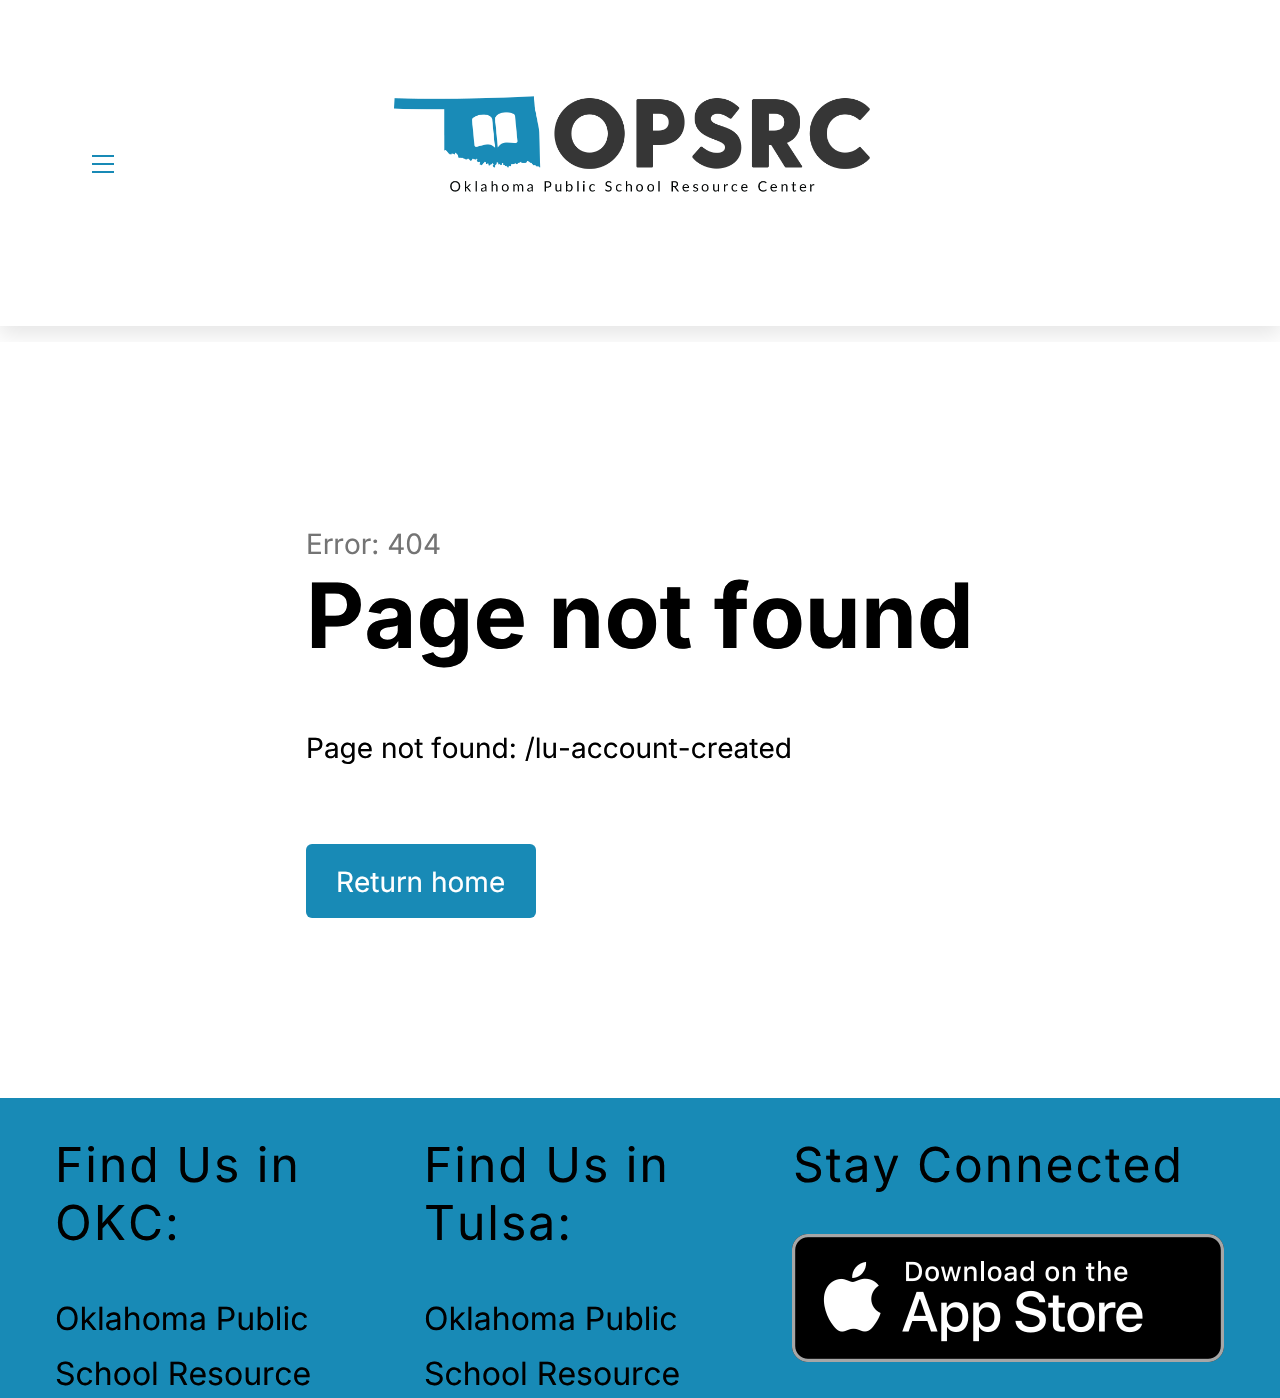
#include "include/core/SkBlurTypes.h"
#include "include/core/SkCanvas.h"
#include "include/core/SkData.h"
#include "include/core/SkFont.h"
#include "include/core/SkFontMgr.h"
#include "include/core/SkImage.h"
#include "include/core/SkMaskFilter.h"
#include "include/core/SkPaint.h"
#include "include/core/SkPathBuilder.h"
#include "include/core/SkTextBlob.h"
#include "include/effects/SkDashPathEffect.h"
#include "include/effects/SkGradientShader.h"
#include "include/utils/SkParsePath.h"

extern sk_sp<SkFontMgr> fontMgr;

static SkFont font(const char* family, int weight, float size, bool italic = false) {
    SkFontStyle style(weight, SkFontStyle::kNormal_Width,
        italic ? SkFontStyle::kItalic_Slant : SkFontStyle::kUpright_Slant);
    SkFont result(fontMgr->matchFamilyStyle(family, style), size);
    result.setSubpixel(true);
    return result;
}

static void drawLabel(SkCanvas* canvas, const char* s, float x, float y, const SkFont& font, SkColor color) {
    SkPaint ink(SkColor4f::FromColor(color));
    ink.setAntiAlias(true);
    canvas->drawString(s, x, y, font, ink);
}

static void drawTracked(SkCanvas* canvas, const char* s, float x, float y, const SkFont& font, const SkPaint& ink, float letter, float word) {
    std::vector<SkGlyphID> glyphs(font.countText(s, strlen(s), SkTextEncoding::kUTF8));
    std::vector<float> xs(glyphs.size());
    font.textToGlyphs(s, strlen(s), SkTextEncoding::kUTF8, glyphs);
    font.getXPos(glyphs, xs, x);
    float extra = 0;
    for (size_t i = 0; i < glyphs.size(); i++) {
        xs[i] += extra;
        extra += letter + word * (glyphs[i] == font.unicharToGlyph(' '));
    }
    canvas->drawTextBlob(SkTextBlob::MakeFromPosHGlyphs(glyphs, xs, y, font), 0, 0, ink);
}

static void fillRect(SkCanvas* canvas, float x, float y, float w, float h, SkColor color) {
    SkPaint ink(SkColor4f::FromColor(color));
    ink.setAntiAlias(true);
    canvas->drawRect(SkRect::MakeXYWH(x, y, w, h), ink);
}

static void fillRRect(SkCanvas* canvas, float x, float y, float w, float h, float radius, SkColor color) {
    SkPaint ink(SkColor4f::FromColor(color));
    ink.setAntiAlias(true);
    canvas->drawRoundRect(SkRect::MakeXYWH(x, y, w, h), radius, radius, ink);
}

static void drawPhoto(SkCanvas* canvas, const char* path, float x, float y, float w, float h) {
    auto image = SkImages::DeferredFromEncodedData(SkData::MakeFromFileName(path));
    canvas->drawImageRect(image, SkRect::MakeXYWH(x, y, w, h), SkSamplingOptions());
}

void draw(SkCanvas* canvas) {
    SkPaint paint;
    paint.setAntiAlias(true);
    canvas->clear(0xFFFFFFFF);
    canvas->save();
    canvas->clipRect(SkRect::MakeXYWH(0, 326, 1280, 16));
    paint.setColor(0x1A000000);
    paint.setMaskFilter(SkMaskFilter::MakeBlur(kNormal_SkBlurStyle, 10));
    canvas->drawRect(SkRect::MakeXYWH(0, 8, 1280, 326), paint);
    paint.setMaskFilter(nullptr);
    canvas->restore();
    drawPhoto(canvas, "assets/img1.png", 92, 155, 22, 18);
    drawPhoto(canvas, "assets/img2.png", 394, 96, 476, 96);
    SkFont font1 = font("Inter", 400, 28);
    drawLabel(canvas, "Error: 404", 306, 554, font1, 0xFF747474);
    SkFont font2 = font("Inter", 700, 90);
    drawLabel(canvas, "Page not found", 306, 648, font2, 0xFF000000);
    drawLabel(canvas, "Page not found: /lu-account-created", 306, 758, font1, 0xFF000000);
    fillRRect(canvas, 306, 844, 230, 74, 6, 0xFF188AB6);
    drawLabel(canvas, "Return home", 336, 892, font1, 0xFFFFFFFF);
    fillRect(canvas, 0, 1098, 1280, 300, 0xFF188AB6);
    SkFont font3 = font("Inter", 400, 48);
    paint.setColor(0xFF000000);
    drawTracked(canvas, "Find Us in", 55, 1182, font3, paint, 2, 0);
    drawTracked(canvas, "OKC:", 55, 1240, font3, paint, 2, 0);
    SkFont font4 = font("Inter", 400, 32);
    drawLabel(canvas, "Oklahoma Public", 55, 1330, font4, 0xFF000000);
    drawLabel(canvas, "School Resource", 55, 1385, font4, 0xFF000000);
    drawTracked(canvas, "Find Us in", 424, 1182, font3, paint, 2, 0);
    drawTracked(canvas, "Tulsa:", 424, 1240, font3, paint, 2, 0);
    drawLabel(canvas, "Oklahoma Public", 424, 1330, font4, 0xFF000000);
    drawLabel(canvas, "School Resource", 424, 1385, font4, 0xFF000000);
    drawTracked(canvas, "Stay Connected", 793, 1182, font3, paint, 2, 0);
    drawPhoto(canvas, "assets/img3.png", 792, 1234, 432, 128);
}
